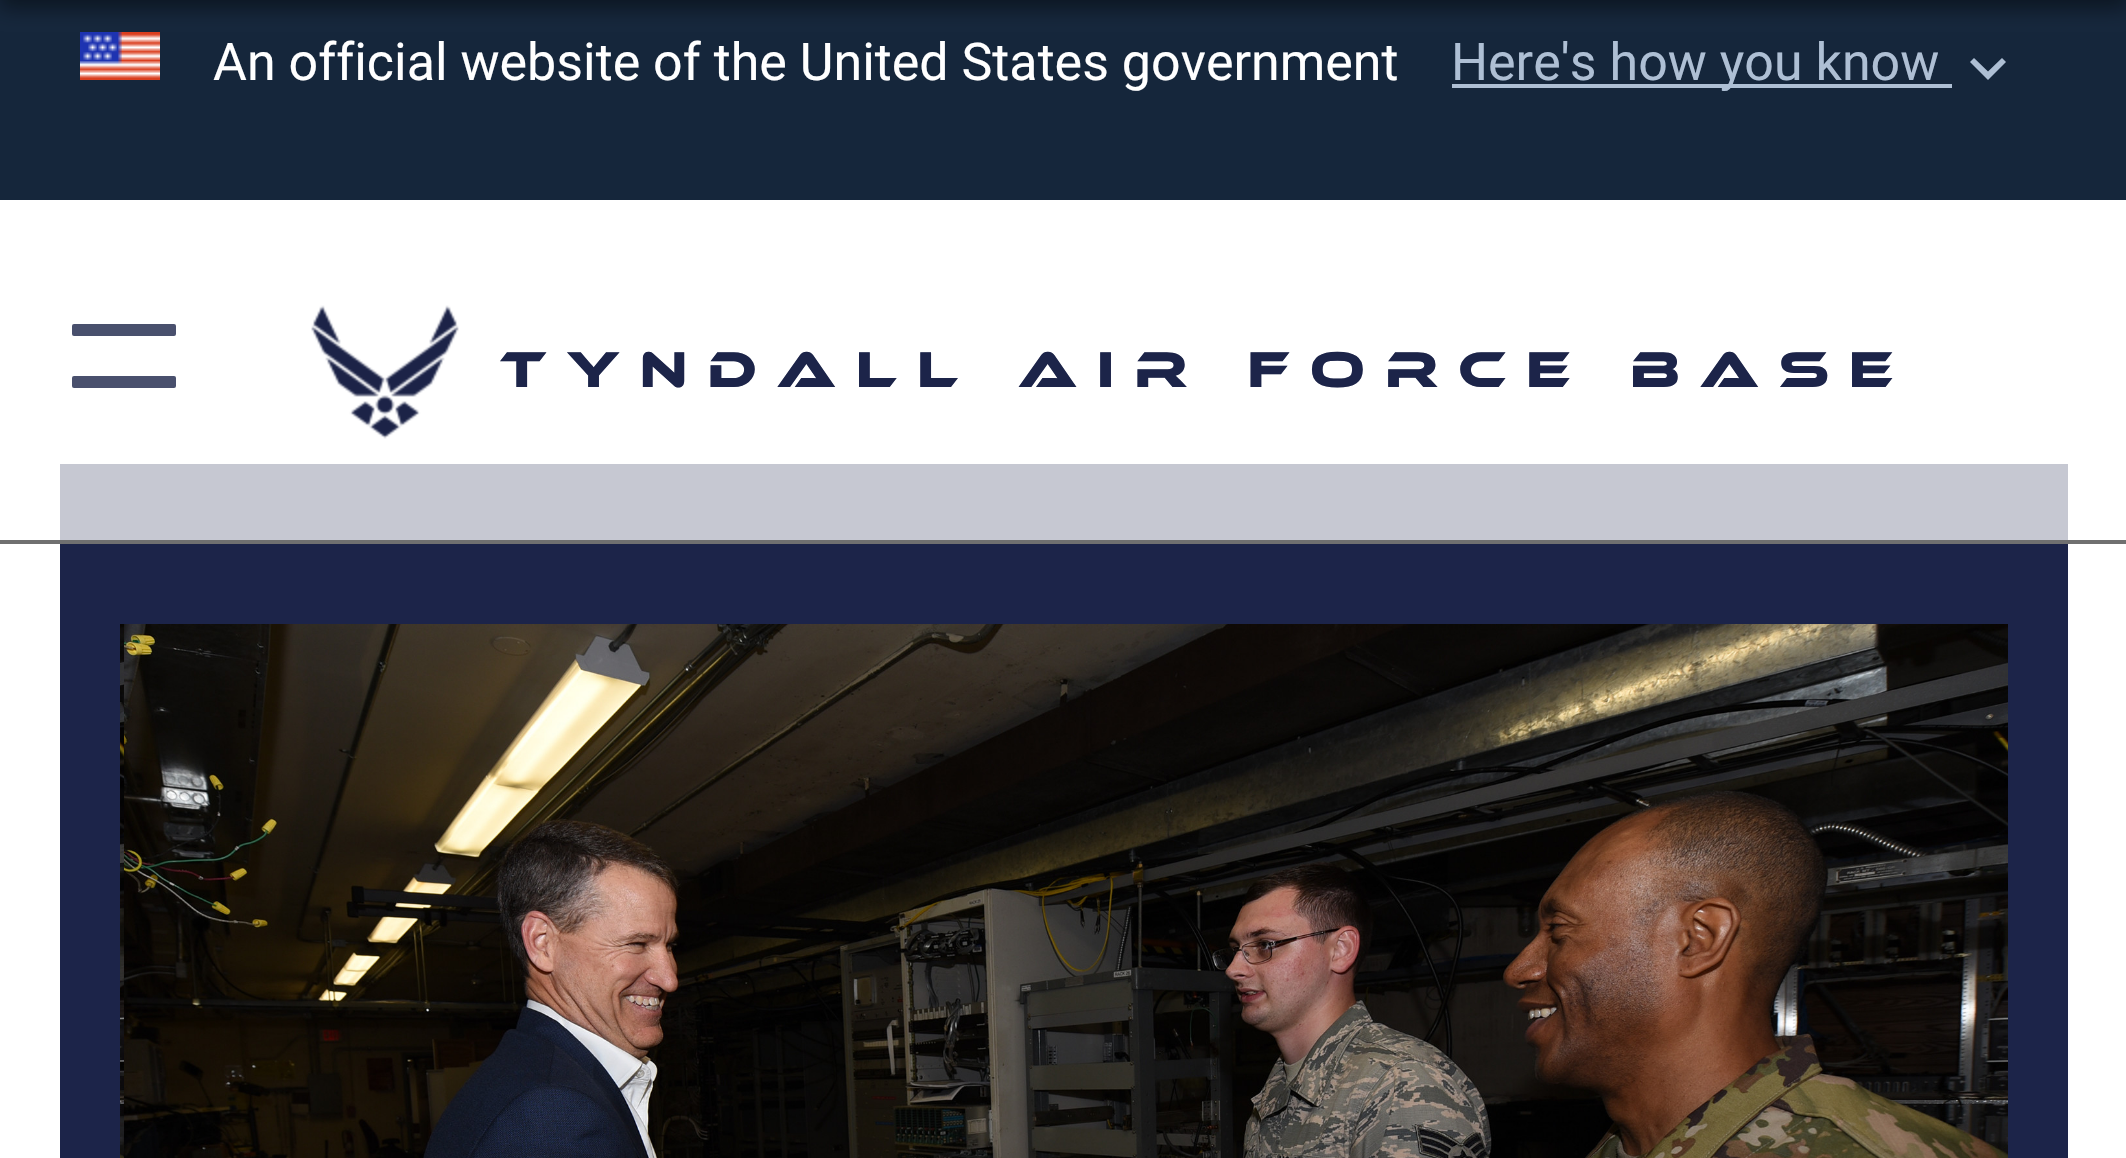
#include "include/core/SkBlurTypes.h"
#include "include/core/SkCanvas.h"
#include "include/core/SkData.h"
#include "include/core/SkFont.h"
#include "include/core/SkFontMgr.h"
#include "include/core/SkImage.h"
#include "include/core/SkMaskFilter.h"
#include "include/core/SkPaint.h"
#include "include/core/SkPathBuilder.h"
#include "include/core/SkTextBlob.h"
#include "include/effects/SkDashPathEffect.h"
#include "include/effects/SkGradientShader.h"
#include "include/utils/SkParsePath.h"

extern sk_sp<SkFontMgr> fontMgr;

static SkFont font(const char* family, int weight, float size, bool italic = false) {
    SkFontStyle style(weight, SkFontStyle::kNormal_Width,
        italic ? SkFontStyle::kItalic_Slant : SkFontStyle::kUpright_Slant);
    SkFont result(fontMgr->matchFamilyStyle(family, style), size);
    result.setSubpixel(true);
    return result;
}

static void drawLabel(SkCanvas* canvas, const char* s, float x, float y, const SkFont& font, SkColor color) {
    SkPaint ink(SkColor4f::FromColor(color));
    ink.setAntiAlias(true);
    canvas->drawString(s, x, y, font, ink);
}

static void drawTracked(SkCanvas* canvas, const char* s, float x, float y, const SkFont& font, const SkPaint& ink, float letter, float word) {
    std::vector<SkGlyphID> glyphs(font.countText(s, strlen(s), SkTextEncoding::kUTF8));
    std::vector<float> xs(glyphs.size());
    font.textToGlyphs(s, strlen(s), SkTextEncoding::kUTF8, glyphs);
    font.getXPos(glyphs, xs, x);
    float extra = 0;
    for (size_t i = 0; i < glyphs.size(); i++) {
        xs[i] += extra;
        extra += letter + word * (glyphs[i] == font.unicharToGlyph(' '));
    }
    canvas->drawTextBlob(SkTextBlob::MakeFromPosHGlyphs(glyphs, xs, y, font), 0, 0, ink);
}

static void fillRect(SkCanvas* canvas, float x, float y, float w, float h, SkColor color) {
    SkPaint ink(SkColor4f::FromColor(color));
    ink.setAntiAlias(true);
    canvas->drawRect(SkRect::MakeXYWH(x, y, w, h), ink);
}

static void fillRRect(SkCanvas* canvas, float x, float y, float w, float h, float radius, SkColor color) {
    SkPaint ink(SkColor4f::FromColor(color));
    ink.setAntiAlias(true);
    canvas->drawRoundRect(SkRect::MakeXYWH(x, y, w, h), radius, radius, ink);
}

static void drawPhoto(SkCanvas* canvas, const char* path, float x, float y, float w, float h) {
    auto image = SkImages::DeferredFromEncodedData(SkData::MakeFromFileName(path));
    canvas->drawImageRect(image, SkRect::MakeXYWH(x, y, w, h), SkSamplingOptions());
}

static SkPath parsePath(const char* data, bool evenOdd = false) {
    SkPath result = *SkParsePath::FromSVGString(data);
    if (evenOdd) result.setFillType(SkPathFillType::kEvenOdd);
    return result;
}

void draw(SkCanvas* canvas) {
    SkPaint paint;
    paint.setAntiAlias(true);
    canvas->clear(0xFFFFFFFF);
    fillRect(canvas, 0, 0, 2126, 200, 0xFF15263B);
    drawPhoto(canvas, "assets/img1.png", 80, 32, 80, 48);
    SkFont font1 = font("Roboto", 400, 52);
    drawLabel(canvas, "An official website of the United States government", 213, 80, font1, 0xFFFFFFFF);
    fillRect(canvas, 1452, 84, 500, 4, 0xFFAEBFD4);
    drawLabel(canvas, "Here's how you know", 1451, 80, font1, 0xFFAEBFD4);
    paint.setColor(0xFFAEBFD4);
    canvas->drawPath(parsePath("M2002 58L1988 71.5L1974 58L1970 62L1988 80L2006 62Z"), paint);
    paint.setColor(0x80020406);
    paint.setMaskFilter(SkMaskFilter::MakeBlur(kNormal_SkBlurStyle, 10));
    canvas->drawRect(SkRect::MakeXYWH(0, -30, 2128, 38), paint);
    paint.setMaskFilter(nullptr);
    fillRect(canvas, 0, 540, 2126, 4, 0xFF707070);
    fillRRect(canvas, 72, 324, 104, 12, 2, 0xFF49506D);
    fillRRect(canvas, 72, 376, 104, 12, 2, 0xFF49506D);
    drawPhoto(canvas, "assets/img2.png", 311, 305, 148, 134);
    SkFont font2 = font("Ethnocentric", 400, 52);
    paint.setColor(0xFF1C2449);
    drawTracked(canvas, "Tyndall Air Force Base", 500, 387, font2, paint, 19.9f, 0);
    fillRect(canvas, 60, 544, 2008, 614, 0xFF1C2449);
    fillRect(canvas, 60, 464, 2008, 76, 0xFFC6C8D2);
    drawPhoto(canvas, "assets/img3.png", 120, 624, 4, 534);
    drawPhoto(canvas, "assets/img4.png", 124, 624, 1884, 534);
}
